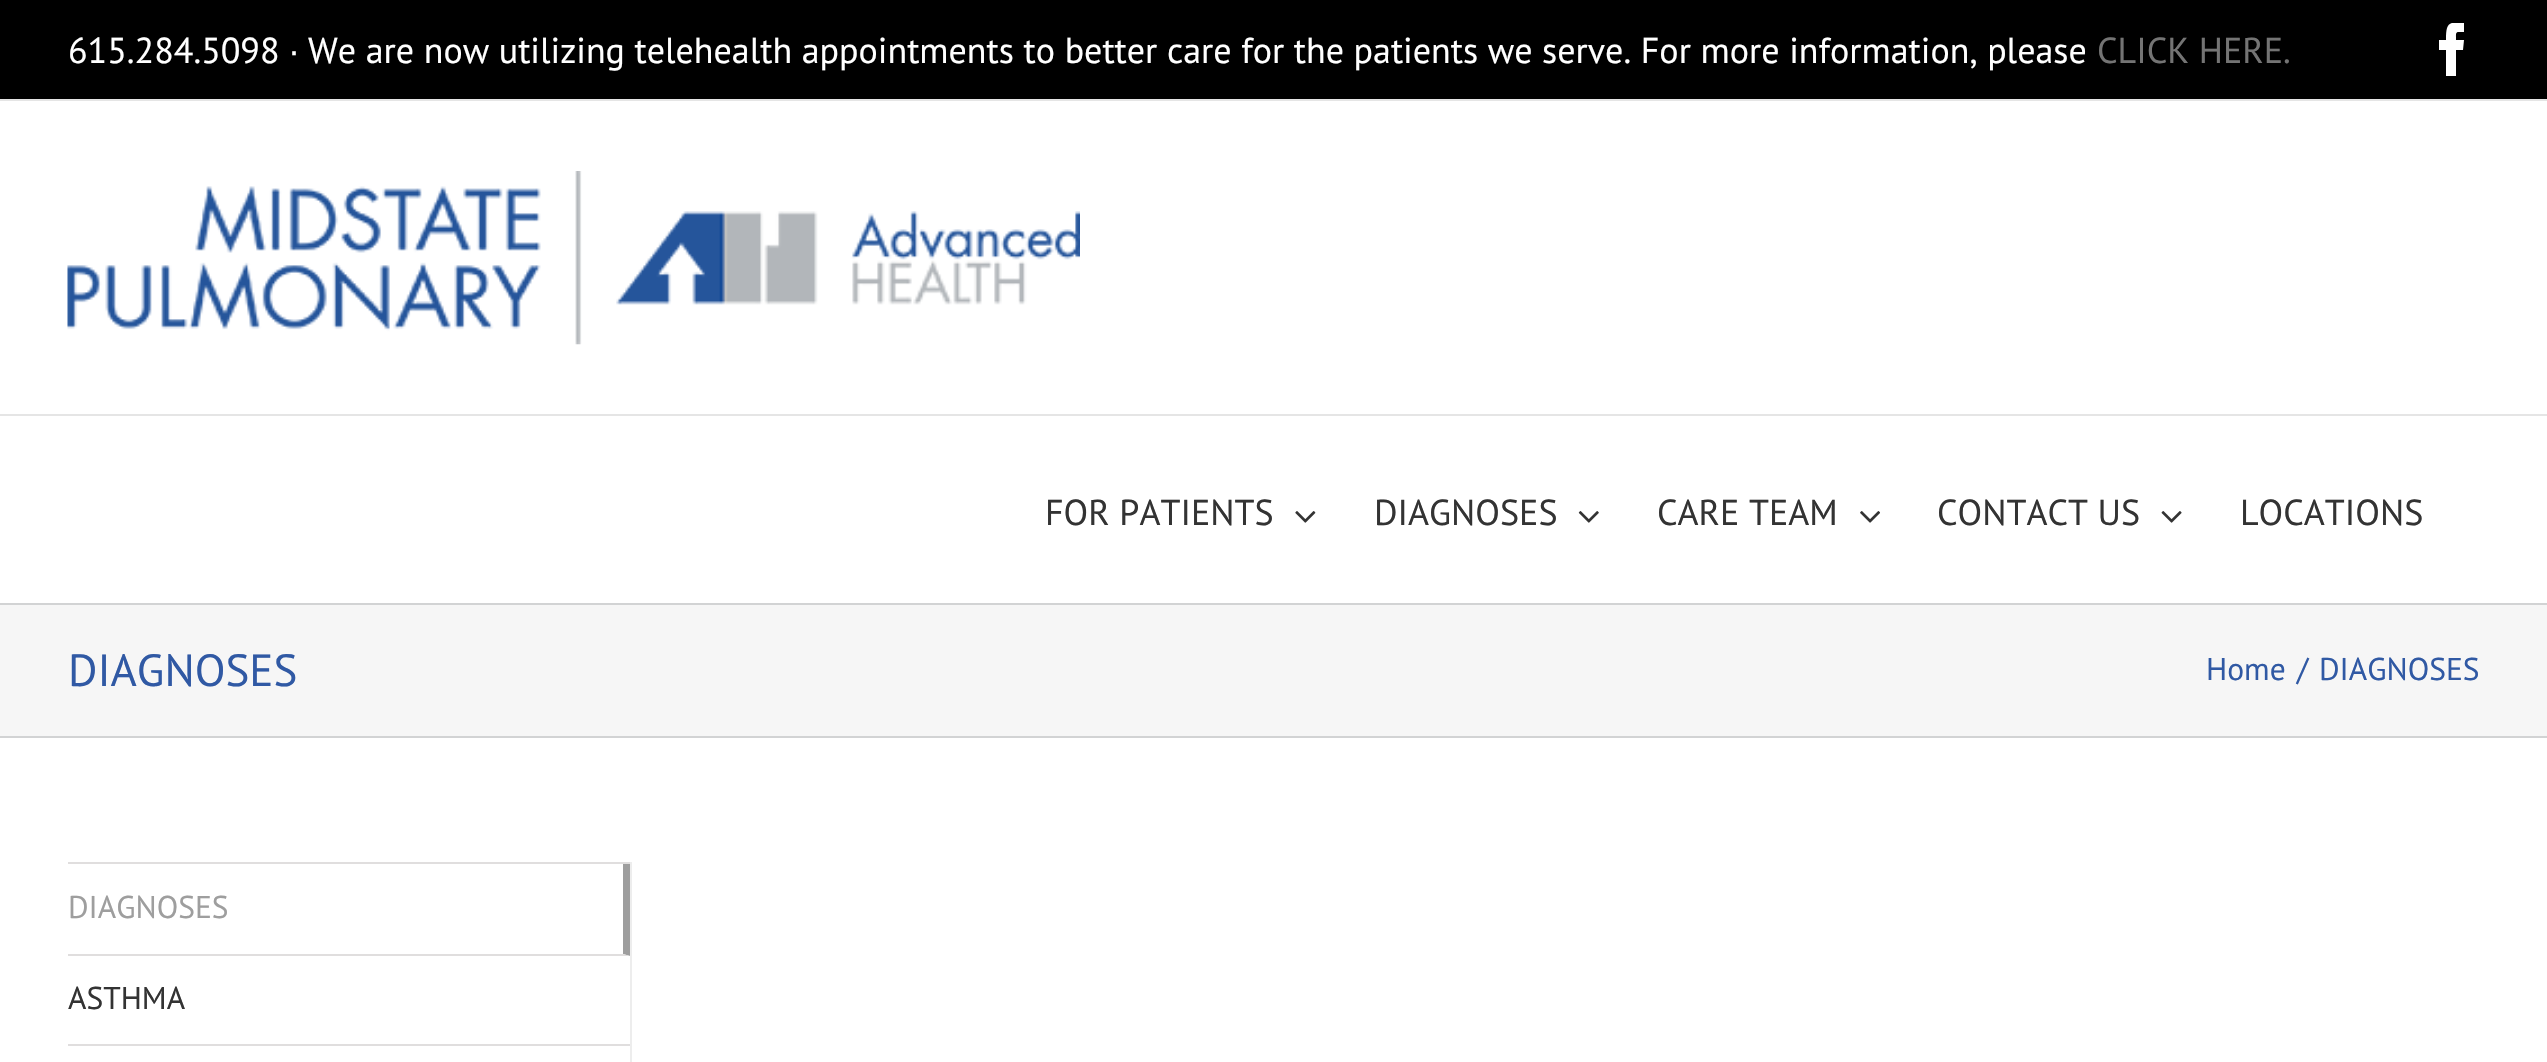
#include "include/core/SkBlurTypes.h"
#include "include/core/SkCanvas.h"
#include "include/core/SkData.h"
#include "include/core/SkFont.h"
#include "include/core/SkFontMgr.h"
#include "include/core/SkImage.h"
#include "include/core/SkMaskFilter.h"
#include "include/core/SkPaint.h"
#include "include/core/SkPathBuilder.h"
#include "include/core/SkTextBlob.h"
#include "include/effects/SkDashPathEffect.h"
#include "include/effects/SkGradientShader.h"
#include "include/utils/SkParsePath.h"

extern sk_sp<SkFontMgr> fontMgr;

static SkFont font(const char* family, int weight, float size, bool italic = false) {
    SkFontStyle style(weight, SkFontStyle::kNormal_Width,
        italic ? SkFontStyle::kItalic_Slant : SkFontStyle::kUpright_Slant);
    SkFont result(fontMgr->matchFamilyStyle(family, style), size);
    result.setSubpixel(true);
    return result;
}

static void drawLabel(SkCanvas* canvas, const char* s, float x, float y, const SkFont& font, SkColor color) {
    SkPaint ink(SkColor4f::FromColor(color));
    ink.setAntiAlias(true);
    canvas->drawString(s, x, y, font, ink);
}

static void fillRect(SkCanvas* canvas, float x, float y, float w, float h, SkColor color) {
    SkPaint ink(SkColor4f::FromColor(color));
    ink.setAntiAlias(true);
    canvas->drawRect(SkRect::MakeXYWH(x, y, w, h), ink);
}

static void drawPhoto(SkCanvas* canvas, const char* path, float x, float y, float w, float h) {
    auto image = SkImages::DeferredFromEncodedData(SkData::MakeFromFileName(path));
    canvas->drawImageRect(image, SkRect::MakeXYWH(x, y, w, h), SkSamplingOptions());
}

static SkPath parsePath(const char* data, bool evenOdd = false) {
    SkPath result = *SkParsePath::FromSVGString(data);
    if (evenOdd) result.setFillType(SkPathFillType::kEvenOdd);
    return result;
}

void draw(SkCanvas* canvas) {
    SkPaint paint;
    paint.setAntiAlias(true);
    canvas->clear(0xFFFFFFFF);
    fillRect(canvas, 0, 0, 2547, 99, 0xFF000000);
    fillRect(canvas, 0, 99, 2547, 2, 0xFFE5E5E5);
    SkFont font1 = font("PT Sans", 400, 36);
    drawLabel(canvas, "615.284.5098", 68, 63, font1, 0xFFFFFFFF);
    SkFont font2 = font("Liberation Sans", 400, 36);
    drawLabel(canvas, "∙", 289, 63, font2, 0xFFFFFFFF);
    drawLabel(canvas, "We are now utilizing telehealth appointments to better care for the patients we serve. For more information, please", 308, 63, font1, 0xFFFFFFFF);
    drawLabel(canvas, "CLICK HERE.", 2097, 63, font1, 0xFF747474);
    canvas->save();
    canvas->clipRect(SkRect::MakeXYWH(2426, 23, 54, 76));
    paint.setColor(0xFFFFFFFF);
    canvas->drawPath(parsePath("M2456 76H2446V50H2439V40H2446C2446 23 2448 22 2464 22V32C2455 32 2456 31 2456 40H2464L2463 50H2456Z"), paint);
    canvas->restore();
    fillRect(canvas, 0, 414, 2547, 2, 0xFFE5E5E5);
    drawPhoto(canvas, "assets/img1.png", 67, 171, 1013, 174);
    drawLabel(canvas, "FOR PATIENTS", 1045, 525, font1, 0xFF333333);
    drawPhoto(canvas, "assets/img2.png", 1295, 511, 21, 12);
    drawLabel(canvas, "DIAGNOSES", 1374, 525, font1, 0xFF333333);
    drawPhoto(canvas, "assets/img3.png", 1578, 511, 21, 12);
    drawLabel(canvas, "CARE TEAM", 1657, 525, font1, 0xFF333333);
    drawPhoto(canvas, "assets/img4.png", 1860, 511, 20, 12);
    drawLabel(canvas, "CONTACT US", 1937, 525, font1, 0xFF333333);
    drawPhoto(canvas, "assets/img5.png", 2161, 511, 21, 12);
    drawLabel(canvas, "LOCATIONS", 2240, 525, font1, 0xFF333333);
    fillRect(canvas, 0, 605, 2547, 131, 0xFFF6F6F6);
    fillRect(canvas, 0, 603, 2547, 2, 0xFFD2D3D4);
    fillRect(canvas, 0, 736, 2547, 2, 0xFFD2D3D4);
    SkFont font3 = font("PT Sans", 400, 45);
    drawLabel(canvas, "DIAGNOSES", 68, 686, font3, 0xFF3059A4);
    SkFont font4 = font("PT Sans", 400, 31.5f);
    drawLabel(canvas, "Home", 2206, 680, font4, 0xFF3059A4);
    drawLabel(canvas, "/", 2297, 680, font4, 0xFF3059A4);
    drawLabel(canvas, "DIAGNOSES", 2319, 680, font4, 0xFF3059A4);
    fillRect(canvas, 68, 862, 564, 2, 0xFFE0DEDE);
    fillRect(canvas, 630, 862, 2, 200, 0xFFEDEDED);
    paint.setColor(0xFF9E9E9E);
    canvas->drawPath(parsePath("M630 864V956L623 954V864Z"), paint);
    paint.setColor(0xFFE0DEDE);
    canvas->drawPath(parsePath("M630 956H68V954H623Z"), paint);
    drawLabel(canvas, "DIAGNOSES", 68, 918, font4, 0xFF9E9E9E);
    fillRect(canvas, 68, 1044, 562, 2, 0xFFE0DEDE);
    drawLabel(canvas, "ASTHMA", 68, 1009, font4, 0xFF333333);
}
